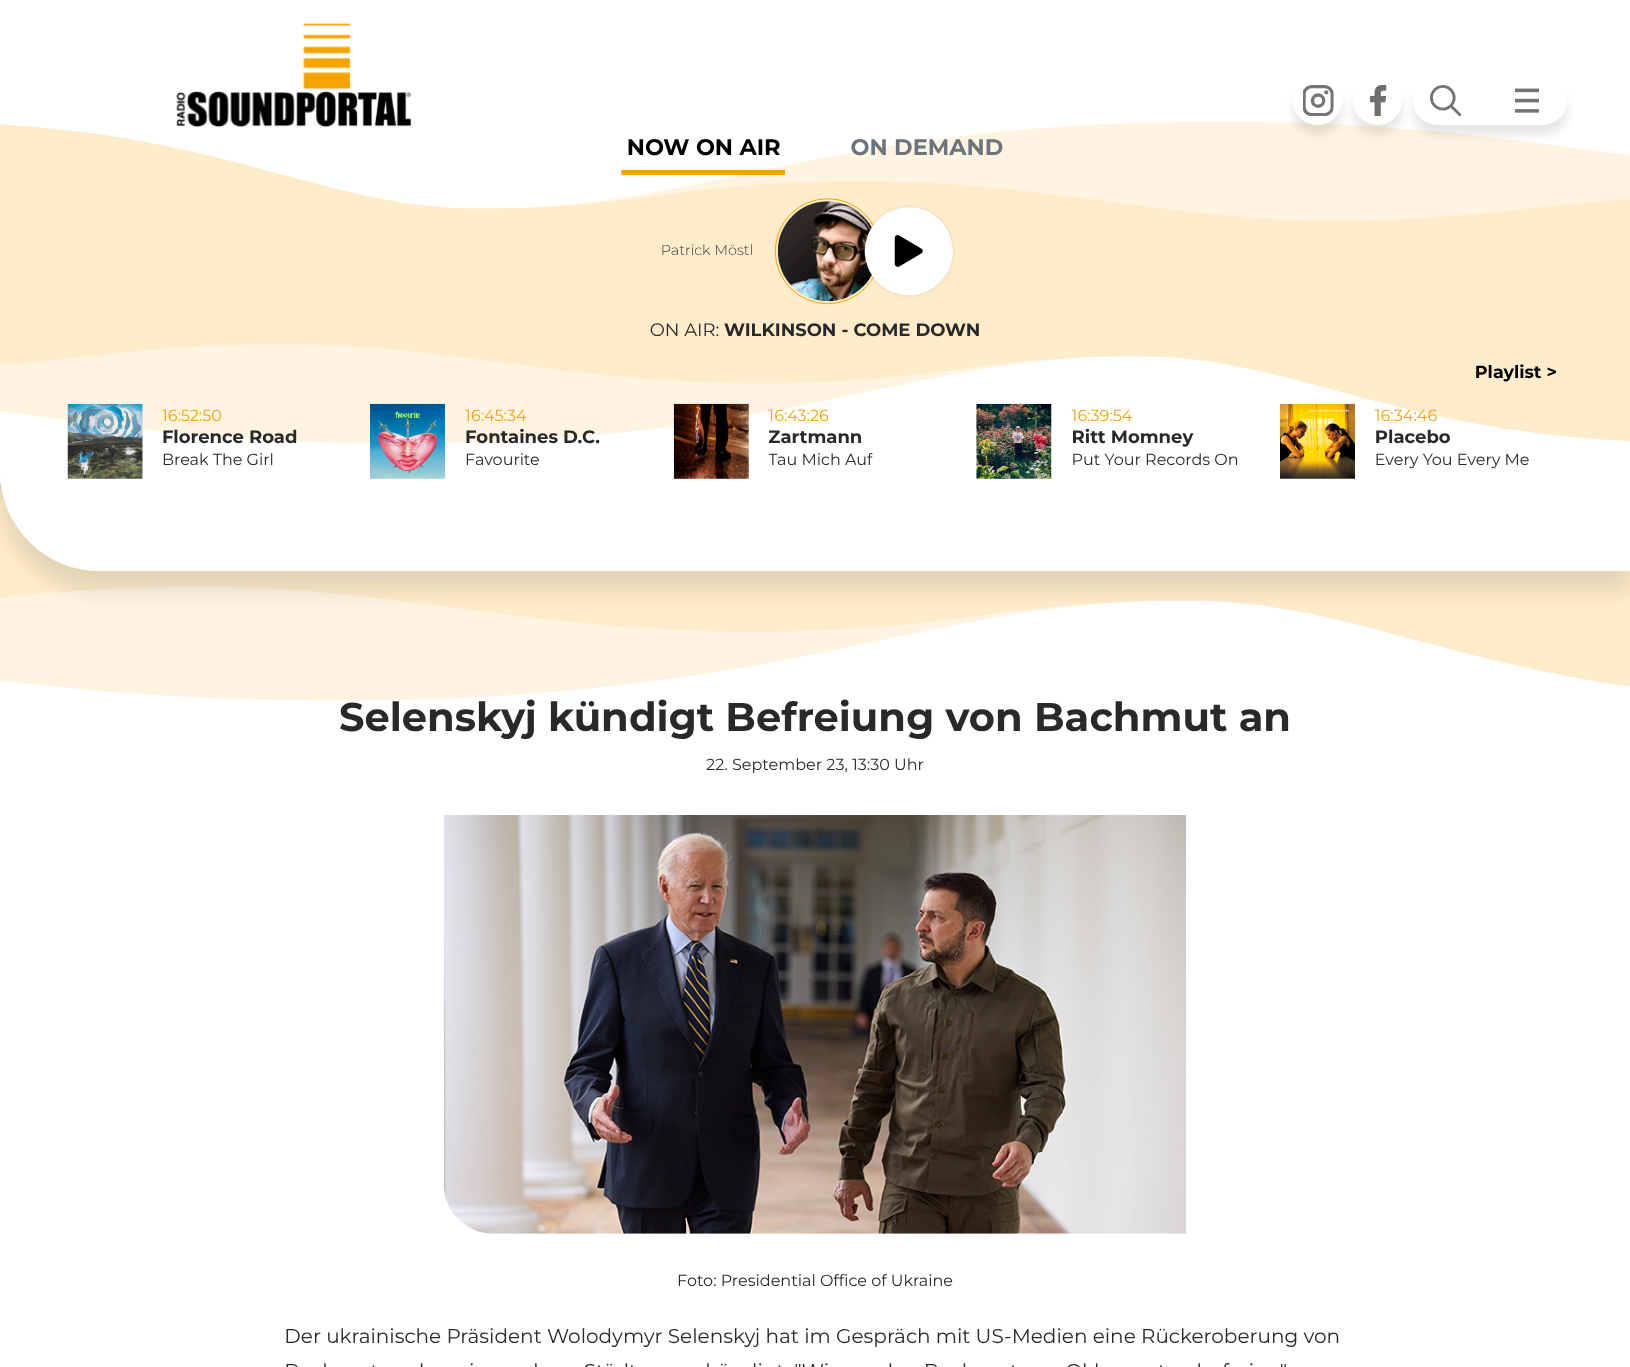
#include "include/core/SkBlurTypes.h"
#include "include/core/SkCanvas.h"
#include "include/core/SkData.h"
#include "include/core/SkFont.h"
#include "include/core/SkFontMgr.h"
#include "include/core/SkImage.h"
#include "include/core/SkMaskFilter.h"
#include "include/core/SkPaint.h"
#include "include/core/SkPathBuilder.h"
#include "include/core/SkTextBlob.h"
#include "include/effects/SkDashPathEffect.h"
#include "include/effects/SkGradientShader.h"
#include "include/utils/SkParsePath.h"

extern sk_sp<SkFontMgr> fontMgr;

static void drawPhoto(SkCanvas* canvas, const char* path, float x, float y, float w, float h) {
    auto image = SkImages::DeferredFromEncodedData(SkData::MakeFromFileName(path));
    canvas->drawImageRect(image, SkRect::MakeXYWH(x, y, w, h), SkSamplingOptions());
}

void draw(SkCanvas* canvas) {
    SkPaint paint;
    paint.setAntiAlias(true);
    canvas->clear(0xFFFFFFFF);
    drawPhoto(canvas, "assets/img1.png", 0, 22, 1630, 1345);
}
